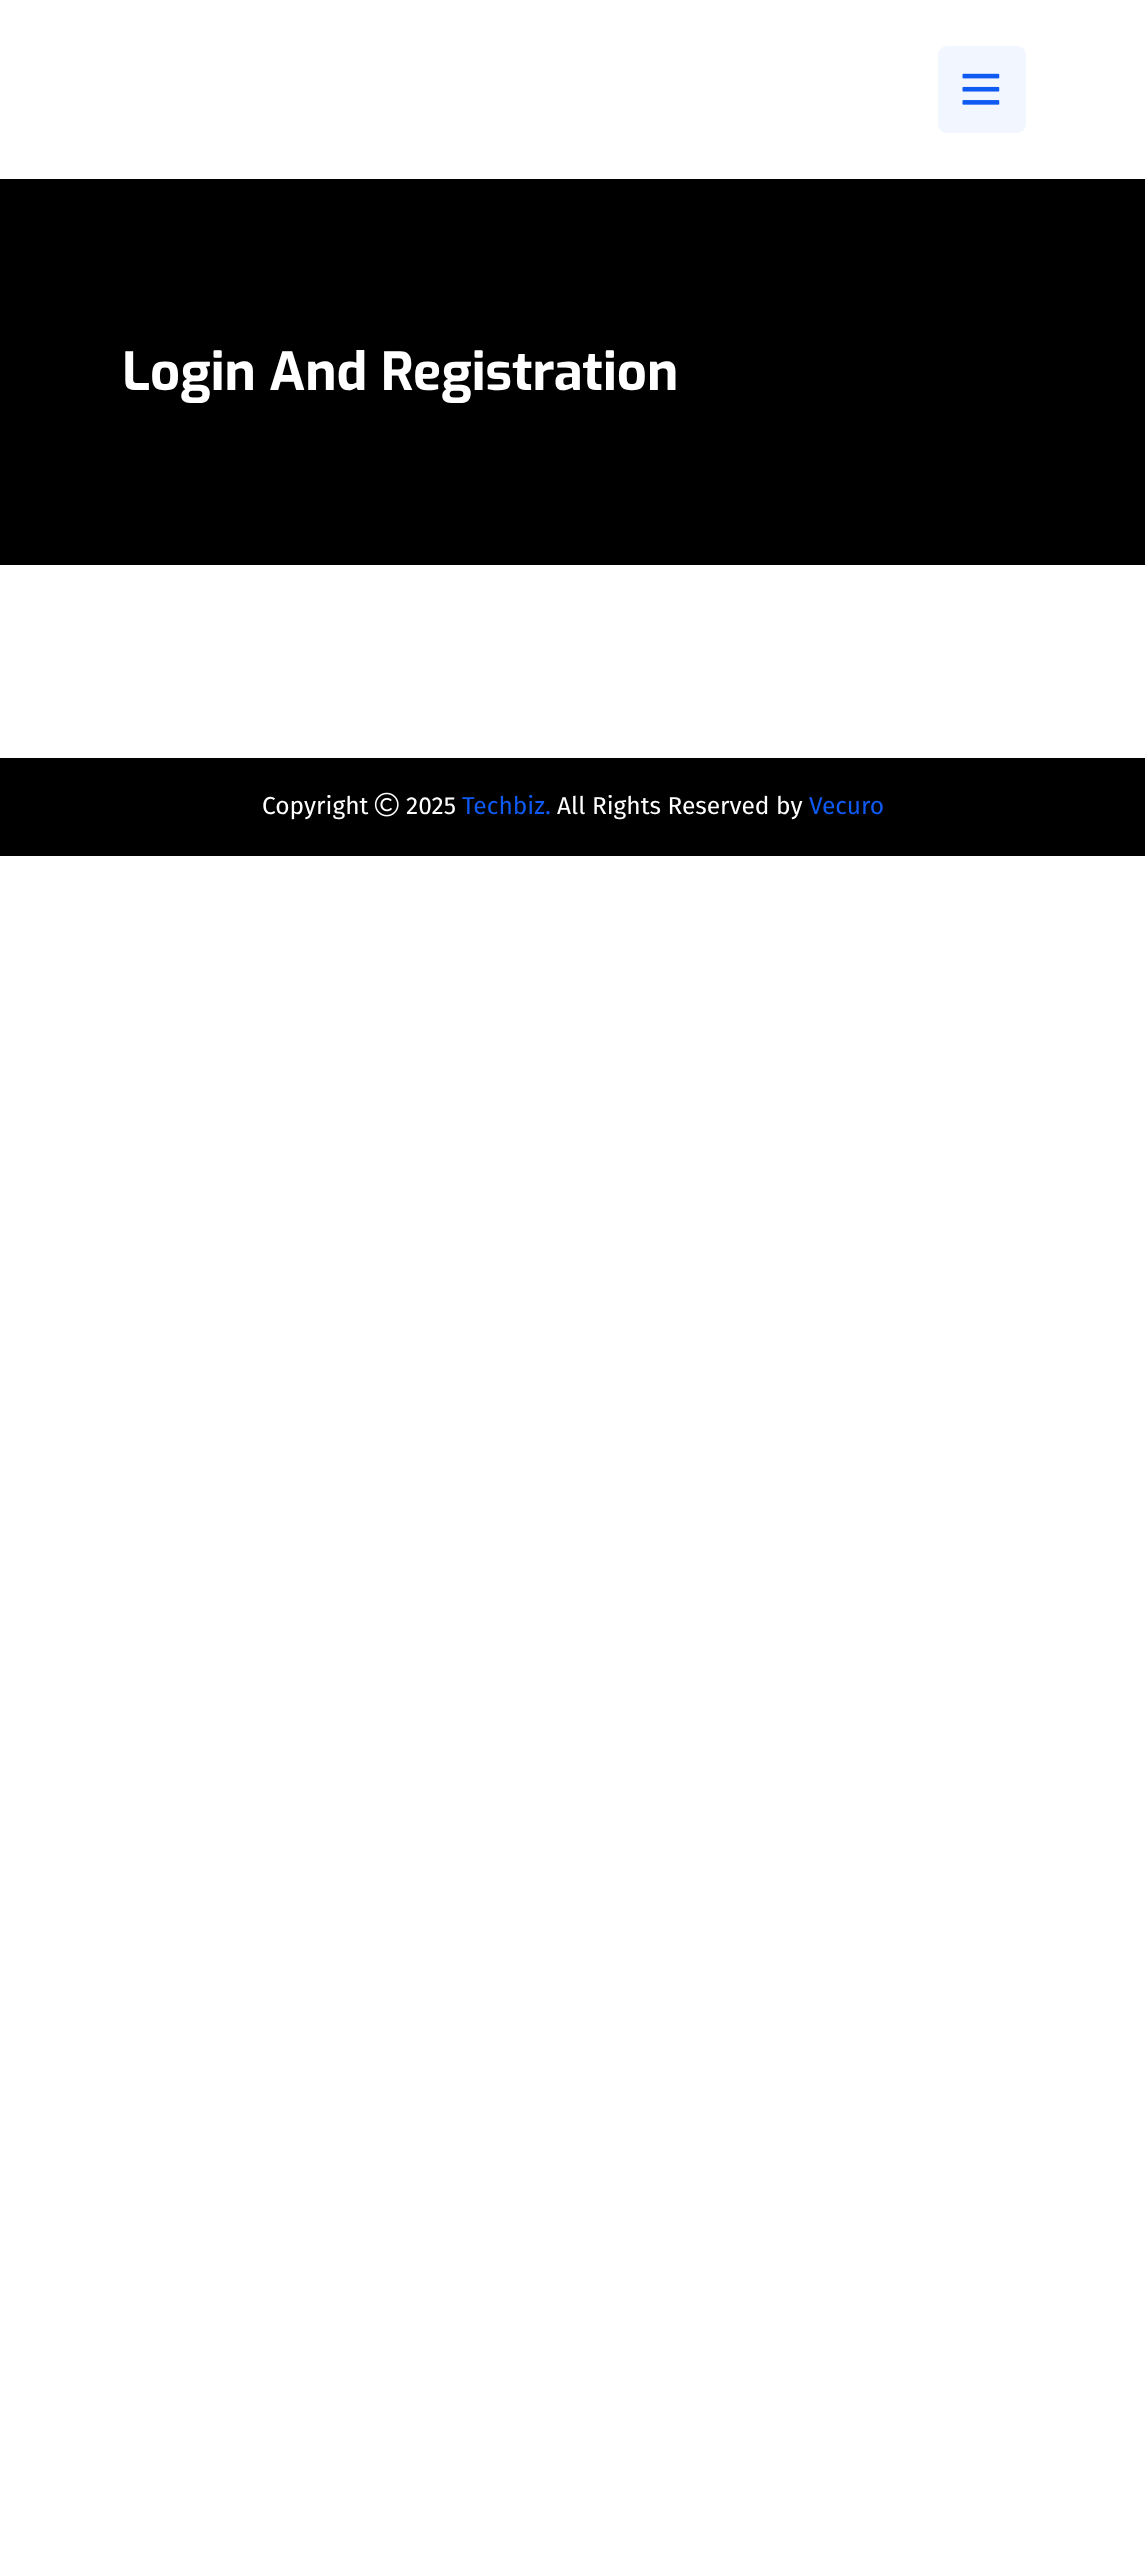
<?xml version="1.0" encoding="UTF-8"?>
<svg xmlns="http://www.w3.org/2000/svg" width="1145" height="2563">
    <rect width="100%" height="100%" fill="#FFFFFF"/>
    <rect x="938" y="46" width="88" height="87" rx="9" fill="#F2F6FF"/>
    <image x="962" y="73" width="38" height="32" href="img_01.png"/>
    <rect x="0" y="179" width="1145" height="386" fill="#000000"/>
    <text x="122" y="390" font-family="Exo" font-size="52.5" font-weight="700" fill="#FFFFFF">Login And Registration</text>
    <rect x="0" y="758" width="1145" height="98" fill="#000000"/>
    <text x="262" y="814" font-family="Fira Sans" font-size="24.5" fill="#FFFFFF">Copyright</text>
    <image x="374" y="792" width="25" height="25" href="img_02.png"/>
    <text x="406" y="814" font-family="Fira Sans" font-size="24.5" fill="#FFFFFF">2025</text>
    <text x="462" y="814" font-family="Fira Sans" font-size="24.5" fill="#0E5AF2">Techbiz.</text>
    <text x="557" y="814" font-family="Fira Sans" font-size="24.5" fill="#FFFFFF">All Rights Reserved by</text>
    <text x="809" y="814" font-family="Fira Sans" font-size="24.5" fill="#0E5AF2">Vecuro</text>
</svg>
